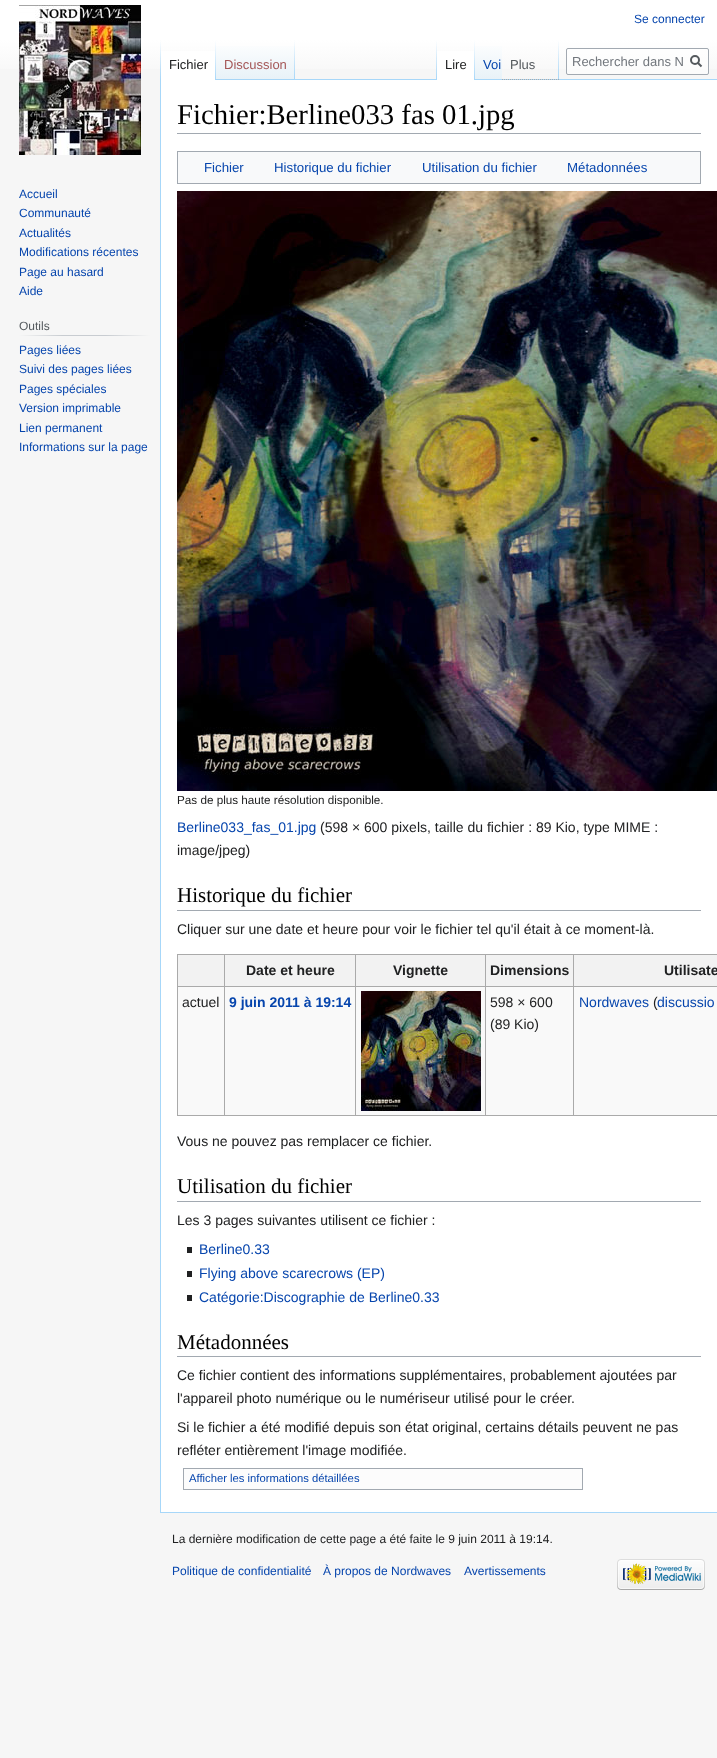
<?xml version="1.0" encoding="UTF-8"?>
<svg xmlns="http://www.w3.org/2000/svg" width="717" height="1758">
    <defs>
        <linearGradient id="g1" gradientUnits="userSpaceOnUse" x1="359" y1="0" x2="359" y2="80"><stop offset="0.5" stop-color="#FFFFFF"/><stop offset="1" stop-color="#F6F6F6"/></linearGradient>
        <linearGradient id="g2" gradientUnits="userSpaceOnUse" x1="161" y1="40" x2="161" y2="80"><stop offset="0" stop-color="#A7D7F9" stop-opacity="0"/><stop offset="1" stop-color="#A7D7F9"/></linearGradient>
        <linearGradient id="g3" gradientUnits="userSpaceOnUse" x1="216" y1="40" x2="216" y2="80"><stop offset="0" stop-color="#FFFFFF"/><stop offset="1" stop-color="#A7D7F9"/></linearGradient>
        <linearGradient id="g4" gradientUnits="userSpaceOnUse" x1="256" y1="80" x2="256" y2="40"><stop offset="0" stop-color="#77C1F6"/><stop offset="0.03" stop-color="#E8F2F8"/><stop offset="1" stop-color="#FFFFFF"/></linearGradient>
        <linearGradient id="g5" gradientUnits="userSpaceOnUse" x1="295" y1="40" x2="295" y2="80"><stop offset="0" stop-color="#A7D7F9" stop-opacity="0"/><stop offset="1" stop-color="#A7D7F9"/></linearGradient>
        <linearGradient id="g6" gradientUnits="userSpaceOnUse" x1="437" y1="40" x2="437" y2="80"><stop offset="0" stop-color="#A7D7F9" stop-opacity="0"/><stop offset="1" stop-color="#A7D7F9"/></linearGradient>
        <linearGradient id="g7" gradientUnits="userSpaceOnUse" x1="475" y1="40" x2="475" y2="80"><stop offset="0" stop-color="#FFFFFF"/><stop offset="1" stop-color="#A7D7F9"/></linearGradient>
        <linearGradient id="g8" gradientUnits="userSpaceOnUse" x1="489" y1="80" x2="489" y2="40"><stop offset="0" stop-color="#77C1F6"/><stop offset="0.03" stop-color="#E8F2F8"/><stop offset="1" stop-color="#FFFFFF"/></linearGradient>
        <linearGradient id="g9" gradientUnits="userSpaceOnUse" x1="559" y1="40" x2="559" y2="79"><stop offset="0" stop-color="#A7D7F9" stop-opacity="0"/><stop offset="1" stop-color="#A7D7F9"/></linearGradient>
        <linearGradient id="g10" gradientUnits="userSpaceOnUse" x1="19" y1="336" x2="150" y2="336"><stop offset="0" stop-color="#F6F6F6"/><stop offset="0.33" stop-color="#C8CCD1"/><stop offset="0.66" stop-color="#C8CCD1"/><stop offset="1" stop-color="#F6F6F6"/></linearGradient>
    </defs>
    <rect width="100%" height="100%" fill="#F6F6F6"/>
    <rect x="0" y="0" width="717" height="69" fill="url(#g1)"/>
    <text x="634" y="23" font-family="Liberation Sans" font-size="12" fill="#0645AD">Se connecter</text>
    <rect x="160" y="1512" width="557" height="1" fill="#A7D7F9"/>
    <rect x="160" y="79" width="1" height="1434" fill="#A7D7F9"/>
    <rect x="160" y="40" width="1" height="40" fill="url(#g2)"/>
    <rect x="161" y="51" width="54" height="29" fill="#FFFFFF"/>
    <rect x="215" y="40" width="1" height="40" fill="url(#g3)"/>
    <text x="169" y="69" font-family="Liberation Sans" font-size="13" fill="#202122">Fichier</text>
    <rect x="216" y="46" width="79" height="34" fill="url(#g4)"/>
    <rect x="294" y="40" width="1" height="40" fill="url(#g5)"/>
    <text x="224" y="69" font-family="Liberation Sans" font-size="13" fill="#A55858">Discussion</text>
    <rect x="295" y="79" width="422" height="1" fill="#A7D7F9"/>
    <rect x="436" y="40" width="1" height="40" fill="url(#g6)"/>
    <rect x="437" y="51" width="37" height="29" fill="#FFFFFF"/>
    <rect x="474" y="40" width="1" height="40" fill="url(#g7)"/>
    <text x="445" y="69" font-family="Liberation Sans" font-size="13" fill="#202122">Lire</text>
    <rect x="475" y="46" width="27" height="33" fill="url(#g8)"/>
    <text x="483" y="69" font-family="Liberation Sans" font-size="13" fill="#0645AD">Voi</text>
    <rect x="558" y="40" width="1" height="39" fill="url(#g9)"/>
    <path d="M 502 79.5 H 559" fill="none" stroke="#AAAAAA" stroke-dasharray="1 1"/>
    <text x="510" y="69" font-family="Liberation Sans" font-size="13" fill="#54595D">Plus</text>
    <rect x="566.5" y="48.5" width="142" height="26" rx="1.5" fill="#FFFFFF" fill-opacity="0.5" stroke="#A2A9B1"/>
    <text x="572" y="66" font-family="Liberation Sans" font-size="13" fill="#72777D">Rechercher dans N</text>
    <path d="M 701.5 66.5 L 697.5 62.5" fill="none" stroke="#54595D" stroke-width="2"/>
    <circle cx="695" cy="60" r="4" fill="none" stroke="#54595D" stroke-width="2"/>
    <image x="19" y="5" width="122" height="150" href="img_01.png"/>
    <text font-family="Liberation Sans" font-size="12" fill="#0645AD">
        <tspan x="19" y="198">Accueil</tspan>
        <tspan x="19" y="217">Communauté</tspan>
        <tspan x="19" y="237">Actualités</tspan>
        <tspan x="19" y="256">Modifications récentes</tspan>
        <tspan x="19" y="276">Page au hasard</tspan>
        <tspan x="19" y="295">Aide</tspan>
    </text>
    <rect x="19" y="335" width="131" height="1" fill="url(#g10)"/>
    <text x="19" y="330" font-family="Liberation Sans" font-size="12" fill="#54595D">Outils</text>
    <text font-family="Liberation Sans" font-size="12" fill="#0645AD">
        <tspan x="19" y="354">Pages liées</tspan>
        <tspan x="19" y="373">Suivi des pages liées</tspan>
        <tspan x="19" y="393">Pages spéciales</tspan>
        <tspan x="19" y="412">Version imprimable</tspan>
        <tspan x="19" y="432">Lien permanent</tspan>
        <tspan x="19" y="451">Informations sur la page</tspan>
    </text>
    <rect x="161" y="80" width="556" height="1432" fill="#FFFFFF"/>
    <rect x="177" y="133" width="524" height="1" fill="#A2A9B1"/>
    <text x="177" y="124" font-family="Liberation Serif" font-size="28.75" fill="#000000">Fichier:Berline033 fas 01.jpg</text>
    <rect x="177.5" y="151.5" width="523" height="32" fill="#F8F9FA" stroke="#A2A9B1"/>
    <text x="204" y="172" font-family="Liberation Sans" font-size="13.25" fill="#0645AD">Fichier</text>
    <text x="274" y="172" font-family="Liberation Sans" font-size="13.25" fill="#0645AD">Historique du fichier</text>
    <text x="422" y="172" font-family="Liberation Sans" font-size="13.25" fill="#0645AD">Utilisation du fichier</text>
    <text x="567" y="172" font-family="Liberation Sans" font-size="13.25" fill="#0645AD">Métadonnées</text>
    <image x="177" y="191" width="540" height="600" href="img_02.png"/>
    <text x="177" y="804" font-family="Liberation Sans" font-size="11.7" fill="#202122">Pas de plus haute résolution disponible.</text>
    <text x="177" y="832" font-family="Liberation Sans" font-size="14" fill="#0645AD">Berline033_fas_01.jpg</text>
    <text x="320" y="832" font-family="Liberation Sans" font-size="14" fill="#202122">(598 × 600 pixels, taille du fichier : 89 Kio, type MIME :</text>
    <text x="177" y="855" font-family="Liberation Sans" font-size="14" fill="#202122">image/jpeg)</text>
    <rect x="177" y="910" width="524" height="1" fill="#A2A9B1"/>
    <text x="177" y="902" font-family="Liberation Serif" font-size="21" fill="#000000">Historique du fichier</text>
    <text x="177" y="934" font-family="Liberation Sans" font-size="14" fill="#202122">Cliquer sur une date et heure pour voir le fichier tel qu'il était à ce moment-là.</text>
    <rect x="178" y="987" width="539" height="128" fill="#F9F9F9"/>
    <rect x="177" y="954" width="540" height="1" fill="#AAAAAA"/>
    <rect x="177" y="1115" width="540" height="1" fill="#AAAAAA"/>
    <rect x="177" y="954" width="1" height="162" fill="#AAAAAA"/>
    <rect x="178" y="955" width="46" height="31" fill="#F2F2F2"/>
    <rect x="225" y="955" width="130" height="31" fill="#F2F2F2"/>
    <rect x="573" y="986" width="144" height="1" fill="#AAAAAA"/>
    <rect x="573" y="986" width="1" height="130" fill="#AAAAAA"/>
    <rect x="485" y="986" width="89" height="1" fill="#AAAAAA"/>
    <rect x="485" y="986" width="1" height="130" fill="#AAAAAA"/>
    <rect x="355" y="986" width="131" height="1" fill="#AAAAAA"/>
    <rect x="355" y="986" width="1" height="130" fill="#AAAAAA"/>
    <rect x="224" y="986" width="132" height="1" fill="#AAAAAA"/>
    <rect x="224" y="986" width="1" height="130" fill="#AAAAAA"/>
    <rect x="177" y="986" width="48" height="1" fill="#AAAAAA"/>
    <rect x="224" y="954" width="1" height="33" fill="#AAAAAA"/>
    <text x="246" y="975" font-family="Liberation Sans" font-size="14" font-weight="700" fill="#202122">Date et heure</text>
    <rect x="356" y="955" width="129" height="31" fill="#F2F2F2"/>
    <rect x="355" y="954" width="1" height="33" fill="#AAAAAA"/>
    <text x="393" y="975" font-family="Liberation Sans" font-size="14" font-weight="700" fill="#202122">Vignette</text>
    <rect x="486" y="955" width="87" height="31" fill="#F2F2F2"/>
    <rect x="485" y="954" width="1" height="33" fill="#AAAAAA"/>
    <text x="490" y="975" font-family="Liberation Sans" font-size="14" font-weight="700" fill="#202122">Dimensions</text>
    <rect x="574" y="955" width="143" height="31" fill="#F2F2F2"/>
    <rect x="573" y="954" width="1" height="33" fill="#AAAAAA"/>
    <text x="664" y="975" font-family="Liberation Sans" font-size="14" font-weight="700" fill="#202122">Utilisate</text>
    <text x="182" y="1007" font-family="Liberation Sans" font-size="14" fill="#202122">actuel</text>
    <text x="229" y="1007" font-family="Liberation Sans" font-size="14" font-weight="700" fill="#0645AD">9 juin 2011 à 19:14</text>
    <image x="361" y="991" width="120" height="120" href="img_03.png"/>
    <text font-family="Liberation Sans" font-size="14" fill="#202122">
        <tspan x="490" y="1007">598 × 600</tspan>
        <tspan x="490" y="1029">(89 Kio)</tspan>
    </text>
    <text x="579" y="1007" font-family="Liberation Sans" font-size="14" fill="#0645AD">Nordwaves</text>
    <text x="653" y="1007" font-family="Liberation Sans" font-size="14" fill="#202122">(</text>
    <text x="657" y="1007" font-family="Liberation Sans" font-size="14" fill="#0645AD">discussio</text>
    <text x="177" y="1146" font-family="Liberation Sans" font-size="14" fill="#202122">Vous ne pouvez pas remplacer ce fichier.</text>
    <rect x="177" y="1201" width="524" height="1" fill="#A2A9B1"/>
    <text x="177" y="1193" font-family="Liberation Serif" font-size="21" fill="#000000">Utilisation du fichier</text>
    <text x="177" y="1225" font-family="Liberation Sans" font-size="14" fill="#202122">Les 3 pages suivantes utilisent ce fichier :</text>
    <rect x="187" y="1247" width="5" height="6" fill="#202122"/>
    <text x="199" y="1254" font-family="Liberation Sans" font-size="14" fill="#0645AD">Berline0.33</text>
    <rect x="187" y="1271" width="5" height="6" fill="#202122"/>
    <text x="199" y="1278" font-family="Liberation Sans" font-size="14" fill="#0645AD">Flying above scarecrows (EP)</text>
    <rect x="187" y="1295" width="5" height="6" fill="#202122"/>
    <text x="199" y="1302" font-family="Liberation Sans" font-size="14" fill="#0645AD">Catégorie:Discographie de Berline0.33</text>
    <rect x="177" y="1356" width="524" height="1" fill="#A2A9B1"/>
    <text x="177" y="1349" font-family="Liberation Serif" font-size="21" fill="#000000">Métadonnées</text>
    <text font-family="Liberation Sans" font-size="14" fill="#202122">
        <tspan x="177" y="1380">Ce fichier contient des informations supplémentaires, probablement ajoutées par</tspan>
        <tspan x="177" y="1403">l'appareil photo numérique ou le numériseur utilisé pour le créer.</tspan>
    </text>
    <text font-family="Liberation Sans" font-size="14" fill="#202122">
        <tspan x="177" y="1432">Si le fichier a été modifié depuis son état original, certains détails peuvent ne pas</tspan>
        <tspan x="177" y="1455">refléter entièrement l'image modifiée.</tspan>
    </text>
    <rect x="184" y="1469" width="398" height="20" fill="#FCFCFC"/>
    <rect x="183" y="1468" width="400" height="1" fill="#A2A9B1"/>
    <rect x="582" y="1468" width="1" height="22" fill="#A2A9B1"/>
    <rect x="183" y="1489" width="400" height="1" fill="#A2A9B1"/>
    <rect x="183" y="1468" width="1" height="22" fill="#A2A9B1"/>
    <text x="189" y="1482" font-family="Liberation Sans" font-size="11.25" fill="#0645AD">Afficher les informations détaillées</text>
    <text x="172" y="1543" font-family="Liberation Sans" font-size="12" fill="#202122">La dernière modification de cette page a été faite le 9 juin 2011 à 19:14.</text>
    <text x="172" y="1575" font-family="Liberation Sans" font-size="12" fill="#0645AD">Politique de confidentialité</text>
    <text x="323" y="1575" font-family="Liberation Sans" font-size="12" fill="#0645AD">À propos de Nordwaves</text>
    <text x="464" y="1575" font-family="Liberation Sans" font-size="12" fill="#0645AD">Avertissements</text>
    <image x="617" y="1559" width="88" height="31" href="img_04.png"/>
</svg>
